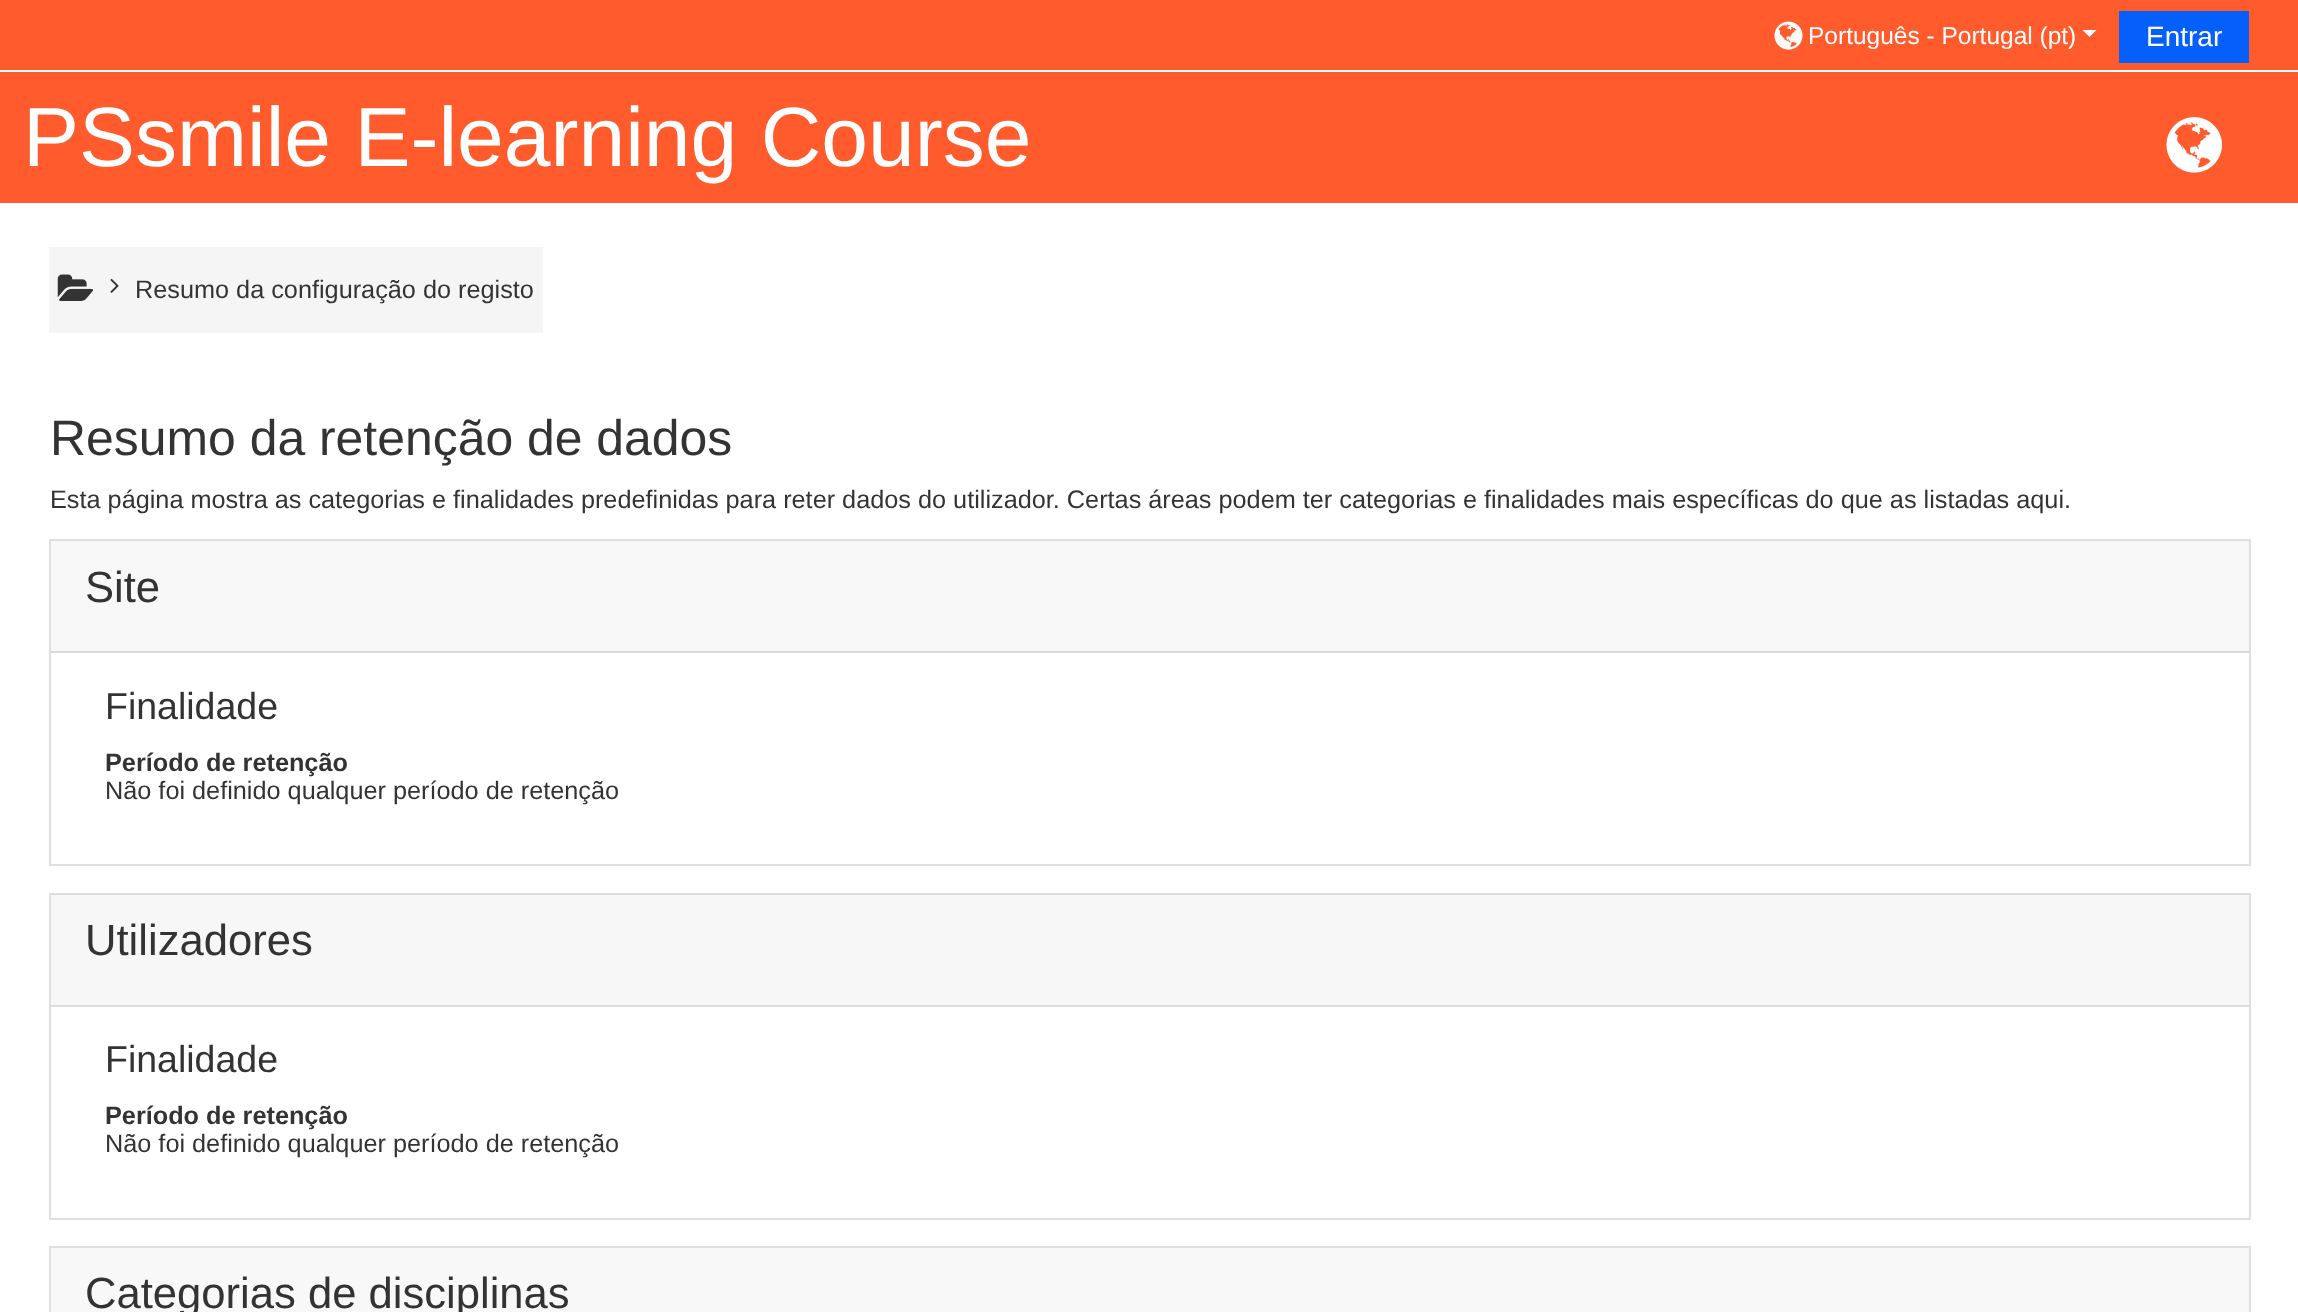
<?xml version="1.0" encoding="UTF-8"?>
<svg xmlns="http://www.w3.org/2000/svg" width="2298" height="1312">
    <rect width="100%" height="100%" fill="#FFFFFF"/>
    <rect x="0" y="0" width="2298" height="203" fill="#FF5B2D"/>
    <rect x="0" y="70" width="2298" height="2" fill="#FFFFFF"/>
    <image x="1774" y="21" width="29" height="29" href="img_01.png"/>
    <text x="1808" y="44" font-family="Liberation Sans" font-size="24.5" fill="#FFFFFF">Português - Portugal (pt)</text>
    <path d="M 2082.5 30 H 2096.5 L 2089.5 37 Z" fill="#FFFFFF"/>
    <rect x="2119" y="11" width="130" height="52" fill="#055FFA"/>
    <text x="2146" y="46" font-family="Liberation Sans" font-size="28" fill="#FFFFFF">Entrar</text>
    <text x="23" y="166" font-family="Liberation Sans" font-size="84" fill="#FFFFFF">PSsmile E-learning Course</text>
    <image x="2166" y="117" width="56" height="56" href="img_02.png"/>
    <rect x="49" y="247" width="494" height="86" fill="#F5F5F5"/>
    <image x="57" y="274" width="36" height="27" href="img_03.png"/>
    <image x="110" y="278" width="9" height="15" href="img_04.png"/>
    <text x="135" y="298" font-family="Liberation Sans" font-size="25.27" fill="#333333">Resumo da configuração do registo</text>
    <text x="50" y="455" font-family="Liberation Sans" font-size="49.9" fill="#333333">Resumo da retenção de dados</text>
    <text x="50" y="508" font-family="Liberation Sans" font-size="25.27" fill="#333333">Esta página mostra as categorias e finalidades predefinidas para reter dados do utilizador. Certas áreas podem ter categorias e finalidades mais específicas do que as listadas aqui.</text>
    <rect x="50" y="540" width="2200" height="325" fill="none" stroke="#DFDFDF" stroke-width="2"/>
    <rect x="51" y="541" width="2198" height="110" fill="#F8F8F8"/>
    <rect x="51" y="651" width="2198" height="2" fill="#D9D9D9"/>
    <text x="85" y="602" font-family="Liberation Sans" font-size="43.6" fill="#333333">Site</text>
    <text x="105" y="719" font-family="Liberation Sans" font-size="37.5" fill="#333333">Finalidade</text>
    <text x="105" y="771" font-family="Liberation Sans" font-size="25.27" font-weight="700" fill="#333333">Período de retenção</text>
    <text x="105" y="799" font-family="Liberation Sans" font-size="25.27" fill="#333333">Não foi definido qualquer período de retenção</text>
    <rect x="50" y="894" width="2200" height="325" fill="none" stroke="#DFDFDF" stroke-width="2"/>
    <rect x="51" y="894" width="2198" height="112" fill="#000000" fill-opacity="0.03"/>
    <rect x="51" y="1005" width="2198" height="2" fill="#000000" fill-opacity="0.12"/>
    <text x="85" y="955" font-family="Liberation Sans" font-size="43.6" fill="#333333">Utilizadores</text>
    <text x="105" y="1072" font-family="Liberation Sans" font-size="37.5" fill="#333333">Finalidade</text>
    <text x="105" y="1124" font-family="Liberation Sans" font-size="25.27" font-weight="700" fill="#333333">Período de retenção</text>
    <text x="105" y="1152" font-family="Liberation Sans" font-size="25.27" fill="#333333">Não foi definido qualquer período de retenção</text>
    <rect x="50" y="1247" width="2200" height="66" fill="none" stroke="#DFDFDF" stroke-width="2"/>
    <rect x="51" y="1248" width="2198" height="64" fill="#F8F8F8"/>
    <text x="85" y="1308" font-family="Liberation Sans" font-size="43.6" fill="#333333">Categorias de disciplinas</text>
</svg>
